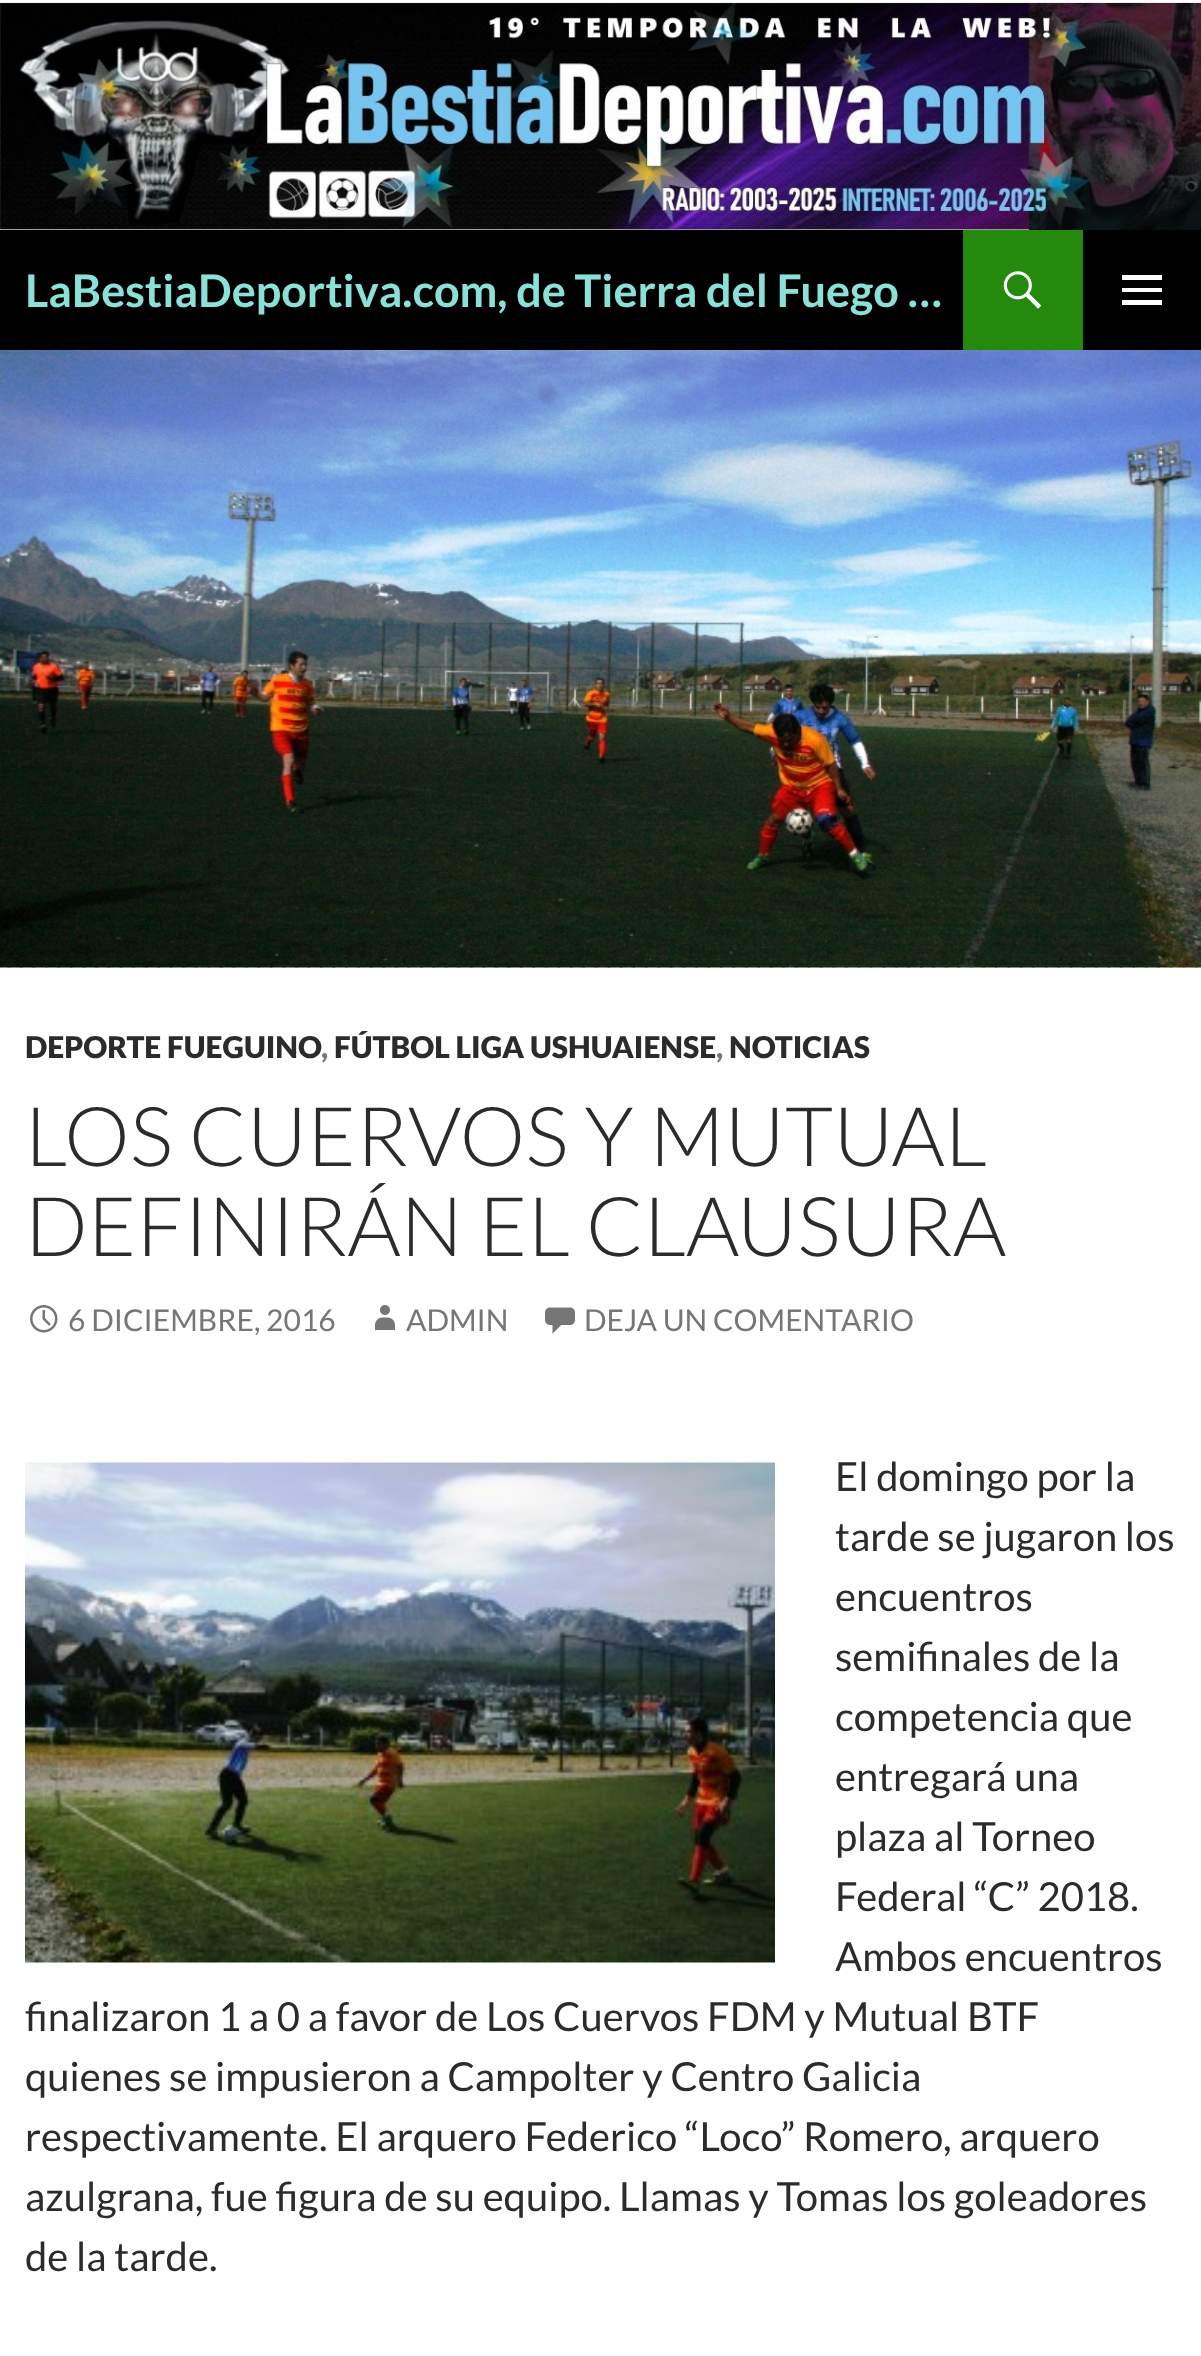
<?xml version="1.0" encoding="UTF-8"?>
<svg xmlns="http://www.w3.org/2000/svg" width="1201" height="2356">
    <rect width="100%" height="100%" fill="#FFFFFF"/>
    <image x="0" y="0" width="1201" height="230" href="img_01.png"/>
    <rect x="0" y="230" width="1201" height="120" fill="#000000"/>
    <text x="25" y="307" font-family="Lato" font-size="45" font-weight="700" fill="#8BE0D7">LaBestiaDeportiva.com, de Tierra del Fuego …</text>
    <rect x="963" y="230" width="120" height="120" fill="#24890D"/>
    <image x="1003" y="271" width="39" height="38" href="img_02.png"/>
    <path d="M 1122 305 V 300 H 1162 V 305 Z M 1122 292 V 288 H 1162 V 292 Z M 1122 280 V 275 H 1162 V 280 Z" fill="#FFFFFF"/>
    <rect x="7" y="967" width="1191" height="1" fill="#B2B2B2"/>
    <image x="0" y="967" width="1201" height="1" href="img_03.png"/>
    <image x="0" y="350" width="1201" height="618" href="img_04.png"/>
    <text x="25" y="1058" font-family="Lato" font-size="30" font-weight="900" fill="#2B2B2B">DEPORTE FUEGUINO</text>
    <text x="321" y="1058" font-family="Lato" font-size="30" font-weight="900" fill="#767676">,</text>
    <text x="334" y="1058" font-family="Lato" font-size="30" font-weight="900" fill="#2B2B2B">FÚTBOL LIGA USHUAIENSE</text>
    <text x="716" y="1058" font-family="Lato" font-size="30" font-weight="900" fill="#767676">,</text>
    <text x="729" y="1058" font-family="Lato" font-size="30" font-weight="900" fill="#2B2B2B">NOTICIAS</text>
    <text font-family="Lato" font-size="82.5" font-weight="300" fill="#2B2B2B">
        <tspan x="25" y="1166">LOS CUERVOS Y MUTUAL</tspan>
        <tspan x="25" y="1256">DEFINIRÁN EL CLAUSURA</tspan>
    </text>
    <image x="30" y="1305" width="28" height="28" href="img_05.png"/>
    <text x="68" y="1331" font-family="Lato" font-size="30" fill="#767676">6 DICIEMBRE, 2016</text>
    <image x="375" y="1305" width="20" height="25" href="img_06.png"/>
    <text x="406" y="1331" font-family="Lato" font-size="30" fill="#767676">ADMIN</text>
    <image x="545" y="1307" width="30" height="27" href="img_07.png"/>
    <text x="584" y="1331" font-family="Lato" font-size="30" fill="#767676">DEJA UN COMENTARIO</text>
    <image x="25" y="1462" width="750" height="501" href="img_08.png"/>
    <text font-family="Lato" font-size="40" fill="#2B2B2B">
        <tspan x="835" y="1491">El domingo por la</tspan>
        <tspan x="835" y="1551">tarde se jugaron los</tspan>
        <tspan x="835" y="1611">encuentros</tspan>
        <tspan x="835" y="1671">semifinales de la</tspan>
        <tspan x="835" y="1731">competencia que</tspan>
        <tspan x="835" y="1791">entregará una</tspan>
        <tspan x="835" y="1851">plaza al Torneo</tspan>
        <tspan x="835" y="1911">Federal “C” 2018.</tspan>
        <tspan x="835" y="1971">Ambos encuentros</tspan>
    </text>
    <text font-family="Lato" font-size="40" fill="#2B2B2B">
        <tspan x="25" y="2031">finalizaron 1 a 0 a favor de Los Cuervos FDM y Mutual BTF</tspan>
        <tspan x="25" y="2091">quienes se impusieron a Campolter y Centro Galicia</tspan>
        <tspan x="25" y="2151">respectivamente. El arquero Federico “Loco” Romero, arquero</tspan>
        <tspan x="25" y="2211">azulgrana, fue figura de su equipo. Llamas y Tomas los goleadores</tspan>
        <tspan x="25" y="2271">de la tarde.</tspan>
    </text>
</svg>
